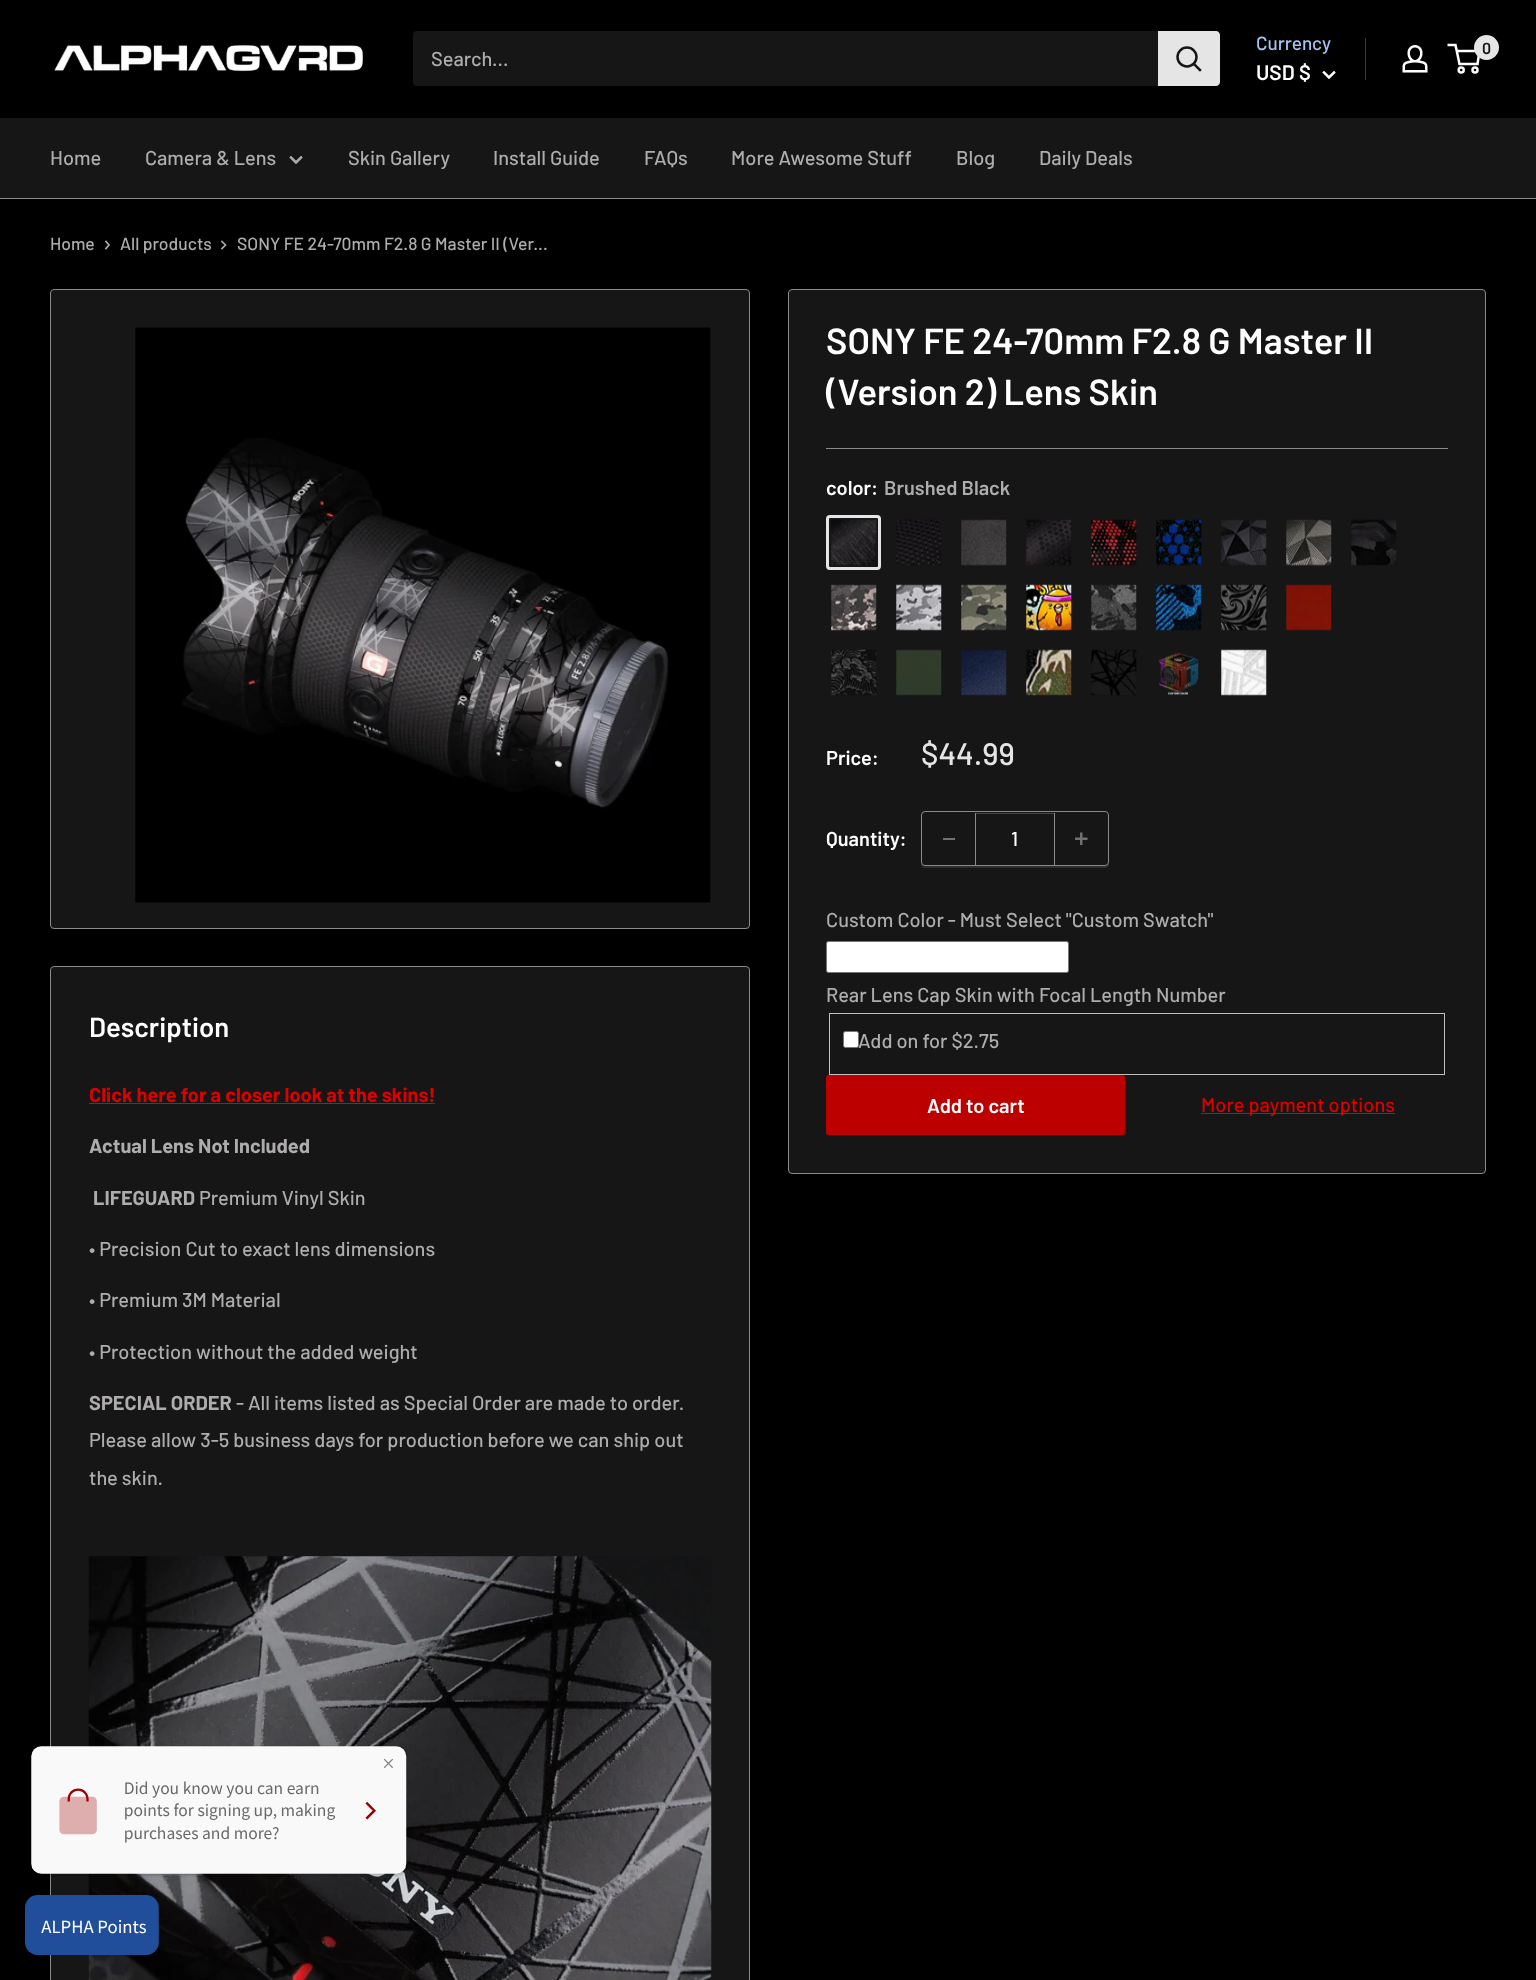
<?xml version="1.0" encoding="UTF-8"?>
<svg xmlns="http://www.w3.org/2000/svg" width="1536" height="1980">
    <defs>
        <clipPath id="clip1"><path d="M 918 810 H 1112 V 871 H 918 Z M 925 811 H 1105 C 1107 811 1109 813 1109 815 V 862 C 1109 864 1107 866 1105 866 H 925 C 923 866 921 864 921 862 V 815 C 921 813 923 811 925 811 Z" clip-rule="evenodd"/></clipPath>
        <filter id="blur1" x="-50%" y="-200%" width="200%" height="500%"><feGaussianBlur stdDeviation="0.5"/></filter>
    </defs>
    <rect width="100%" height="100%" fill="#000000"/>
    <image x="54" y="45" width="309" height="27" href="img_01.png"/>
    <rect x="413" y="31" width="807" height="55" rx="4" fill="#161616"/>
    <text x="431" y="66" font-family="Barlow" font-size="20" font-weight="500" fill="#AFACAC">Search...</text>
    <path d="M 1158 31 H 1216 C 1218 31 1220 33 1220 35 V 82 C 1220 84 1218 86 1216 86 H 1158 Z" fill="#E5E5E5"/>
    <path d="M 1200 70 L 1194 64" fill="none" stroke="#161616" stroke-width="2.5" stroke-linecap="square"/>
    <circle cx="1187" cy="57" r="9.5" fill="none" stroke="#161616" stroke-width="2.5"/>
    <text x="1256" y="50" font-family="Barlow" font-size="19" font-weight="500" fill="#A3C3F0">Currency</text>
    <text x="1256" y="80" font-family="Barlow" font-size="21" font-weight="600" fill="#FFFFFF">USD $</text>
    <path d="M 1334 72.5 L 1329 77.5 L 1324 72.5" fill="none" stroke="#FFFFFF" stroke-width="2.5" stroke-linecap="square"/>
    <rect x="1365" y="38" width="1" height="42" fill="#313B48"/>
    <image x="1402" y="45" width="26" height="28" href="img_02.png"/>
    <circle cx="1461.2" cy="70" r="2.5" fill="none" stroke="#FFFFFF" stroke-width="2.5"/>
    <circle cx="1475" cy="70" r="2.5" fill="none" stroke="#FFFFFF" stroke-width="2.5"/>
    <path d="M 1456.5 51 H 1479.5 L 1477.5 64 H 1459.5 L 1455.5 45 H 1447.5" fill="none" stroke="#FFFFFF" stroke-width="2.5"/>
    <circle cx="1486.5" cy="47.5" r="12.5" fill="#E5E5E5"/>
    <text x="1482" y="54" font-family="Barlow" font-size="16" font-weight="600" fill="#161616">0</text>
    <rect x="0" y="118" width="1536" height="80" fill="#161616"/>
    <rect x="0" y="198" width="1536" height="1" fill="#8B8B8B"/>
    <text x="50" y="165" font-family="Barlow" font-size="20" font-weight="500" fill="#AFACAC">Home</text>
    <text x="145" y="165" font-family="Barlow" font-size="20" font-weight="500" fill="#AFACAC">Camera &amp; Lens</text>
    <path d="M 301 157.5 L 296 162.5 L 291 157.5" fill="none" stroke="#AFACAC" stroke-width="2.5" stroke-linecap="square"/>
    <text x="348" y="165" font-family="Barlow" font-size="20" font-weight="500" fill="#AFACAC">Skin Gallery</text>
    <text x="493" y="165" font-family="Barlow" font-size="20" font-weight="500" fill="#AFACAC">Install Guide</text>
    <text x="644" y="165" font-family="Barlow" font-size="20" font-weight="500" fill="#AFACAC">FAQs</text>
    <text x="731" y="165" font-family="Barlow" font-size="20" font-weight="500" fill="#AFACAC">More Awesome Stuff</text>
    <text x="956" y="165" font-family="Barlow" font-size="20" font-weight="500" fill="#AFACAC">Blog</text>
    <text x="1039" y="165" font-family="Barlow" font-size="20" font-weight="500" fill="#AFACAC">Daily Deals</text>
    <text x="50" y="250" font-family="Barlow" font-size="17.5" font-weight="500" fill="#AFACAC">Home</text>
    <path d="M 106 241.5 L 109 245 L 106 248.5" fill="none" stroke="#AFACAC" stroke-width="1.7" stroke-linecap="square"/>
    <text x="120" y="250" font-family="Barlow" font-size="17.5" font-weight="500" fill="#AFACAC">All products</text>
    <path d="M 222 241.5 L 225.5 245 L 222 248.5" fill="none" stroke="#AFACAC" stroke-width="1.7" stroke-linecap="square"/>
    <text x="237" y="250" font-family="Barlow" font-size="17.5" font-weight="500" fill="#AFACAC">SONY FE 24-70mm F2.8 G Master II (Ver...</text>
    <rect x="50.5" y="289.5" width="699" height="639" rx="3.5" fill="#161616" stroke="#8B8B8B"/>
    <image x="135" y="327" width="576" height="576" href="img_03.png"/>
    <rect x="788.5" y="289.5" width="697" height="884" rx="3.5" fill="#161616" stroke="#8B8B8B"/>
    <text font-family="Barlow" font-size="36.25" font-weight="600" fill="#FFFFFF">
        <tspan x="826" y="354">SONY FE 24-70mm F2.8 G Master II</tspan>
        <tspan x="826" y="405">(Version 2) Lens Skin</tspan>
    </text>
    <rect x="826" y="448" width="622" height="1" fill="#8B8B8B"/>
    <text x="826" y="495" font-family="Barlow" font-size="20" font-weight="600" fill="#FFFFFF">color:</text>
    <text x="884" y="495" font-family="Barlow" font-size="20" font-weight="600" fill="#AFACAC">Brushed Black</text>
    <image x="831" y="519" width="46" height="47" href="img_04.png"/>
    <rect x="827.5" y="516.5" width="52" height="52" rx="2.5" fill="none" stroke="#E5E5E5" stroke-width="3"/>
    <image x="896" y="519" width="46" height="47" href="img_05.png"/>
    <image x="961" y="519" width="46" height="47" href="img_06.png"/>
    <image x="1026" y="519" width="46" height="47" href="img_07.png"/>
    <image x="1091" y="519" width="46" height="47" href="img_08.png"/>
    <image x="1156" y="519" width="46" height="47" href="img_09.png"/>
    <image x="1221" y="519" width="46" height="47" href="img_10.png"/>
    <image x="1286" y="519" width="46" height="47" href="img_11.png"/>
    <image x="1351" y="519" width="46" height="47" href="img_12.png"/>
    <image x="831" y="584" width="46" height="47" href="img_13.png"/>
    <image x="896" y="584" width="46" height="47" href="img_14.png"/>
    <image x="961" y="584" width="46" height="47" href="img_15.png"/>
    <image x="1026" y="584" width="46" height="47" href="img_16.png"/>
    <image x="1091" y="584" width="46" height="47" href="img_17.png"/>
    <image x="1156" y="584" width="46" height="47" href="img_18.png"/>
    <image x="1221" y="584" width="46" height="47" href="img_19.png"/>
    <image x="1286" y="584" width="46" height="47" href="img_20.png"/>
    <image x="831" y="649" width="46" height="47" href="img_21.png"/>
    <image x="896" y="649" width="46" height="47" href="img_22.png"/>
    <image x="961" y="649" width="46" height="47" href="img_23.png"/>
    <image x="1026" y="649" width="46" height="47" href="img_24.png"/>
    <image x="1091" y="649" width="46" height="47" href="img_25.png"/>
    <image x="1158" y="652" width="41" height="43" href="img_26.png"/>
    <image x="1221" y="649" width="46" height="47" href="img_27.png"/>
    <text x="826" y="765" font-family="Barlow" font-size="20" font-weight="600" fill="#FFFFFF">Price:</text>
    <text x="921" y="765" font-family="Barlow" font-size="31" font-weight="500" fill="#E5E5E5">$44.99</text>
    <text x="826" y="846" font-family="Barlow" font-size="20" font-weight="600" fill="#FFFFFF">Quantity:</text>
    <g clip-path="url(#clip1)">
        <rect x="921" y="813" width="188" height="55" rx="4" fill="#8B8B8B" fill-opacity="0.2" filter="url(#blur1)"/>
    </g>
    <rect x="921.5" y="811.5" width="187" height="54" rx="3.5" fill="none" stroke="#8B8B8B"/>
    <rect x="943" y="838" width="12" height="2" fill="#727070"/>
    <rect x="976" y="813" width="78" height="1" fill="#454545"/>
    <rect x="1054" y="813" width="1" height="52" fill="#8B8B8B"/>
    <rect x="975" y="813" width="1" height="52" fill="#8B8B8B"/>
    <text x="1011" y="846" font-family="Barlow" font-size="20" font-weight="500" fill="#FFFFFF">1</text>
    <image x="1075" y="832" width="13" height="13" href="img_28.png"/>
    <text x="826" y="927" font-family="Barlow" font-size="20" font-weight="500" fill="#AFACAC">Custom Color - Must Select "Custom Swatch"</text>
    <rect x="826.5" y="941.5" width="242" height="31" rx="2" fill="#FFFFFF" stroke="#767676"/>
    <text x="826" y="1002" font-family="Barlow" font-size="20" font-weight="500" fill="#AFACAC">Rear Lens Cap Skin with Focal Length Number</text>
    <rect x="829.5" y="1013.5" width="615" height="61" fill="none" stroke="#C0C0C0"/>
    <rect x="843.5" y="1031.5" width="15" height="16" rx="2" fill="#FFFFFF" stroke="#767676"/>
    <text x="858" y="1048" font-family="Barlow" font-size="20" font-weight="500" fill="#AFACAC">Add on for $2.75</text>
    <rect x="826" y="1075" width="299" height="60" rx="2.5" fill="#BC0000"/>
    <text x="927" y="1113" font-family="Barlow" font-size="20" font-weight="600" fill="#FFFFFF">Add to cart</text>
    <rect x="1201" y="1113" width="194" height="1" fill="#DC0000"/>
    <text x="1201" y="1112" font-family="Barlow" font-size="20" font-weight="500" fill="#DC0000">More payment options</text>
    <rect x="50.5" y="966.5" width="699" height="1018" rx="3.5" fill="#161616" stroke="#8B8B8B"/>
    <text x="89" y="1037" font-family="Barlow" font-size="27.5" font-weight="600" fill="#FFFFFF">Description</text>
    <text x="89" y="1102" font-family="Barlow" font-size="20" font-weight="700" fill="#DC0000">Click here for a closer look at the skins!</text>
    <rect x="89" y="1103" width="346" height="1" fill="#DC0000"/>
    <text x="89" y="1153" font-family="Barlow" font-size="20" font-weight="700" fill="#AFACAC">Actual Lens Not Included</text>
    <text x="93" y="1205" font-family="Barlow" font-size="20" font-weight="700" fill="#AFACAC">LIFEGUARD</text>
    <text x="199" y="1205" font-family="Barlow" font-size="20" font-weight="500" fill="#AFACAC">Premium Vinyl Skin</text>
    <text x="89" y="1256" font-family="Barlow" font-size="20" font-weight="500" fill="#AFACAC">• Precision Cut to exact lens dimensions</text>
    <text x="89" y="1307" font-family="Barlow" font-size="20" font-weight="500" fill="#AFACAC">• Premium 3M Material</text>
    <text x="89" y="1359" font-family="Barlow" font-size="20" font-weight="500" fill="#AFACAC">• Protection without the added weight</text>
    <text x="89" y="1410" font-family="Barlow" font-size="20" font-weight="700" fill="#AFACAC">SPECIAL ORDER</text>
    <text x="236" y="1410" font-family="Barlow" font-size="20" font-weight="500" fill="#AFACAC">- All items listed as Special Order are made to order.</text>
    <text font-family="Barlow" font-size="20" font-weight="500" fill="#AFACAC">
        <tspan x="89" y="1447">Please allow 3-5 business days for production before we can ship out</tspan>
        <tspan x="89" y="1485">the skin.</tspan>
    </text>
    <image x="88" y="1556" width="624" height="424" href="img_29.png"/>
    <image x="31" y="1745" width="377" height="132" href="img_30.png"/>
    <image x="25" y="1895" width="134" height="60" href="img_31.png"/>
</svg>
